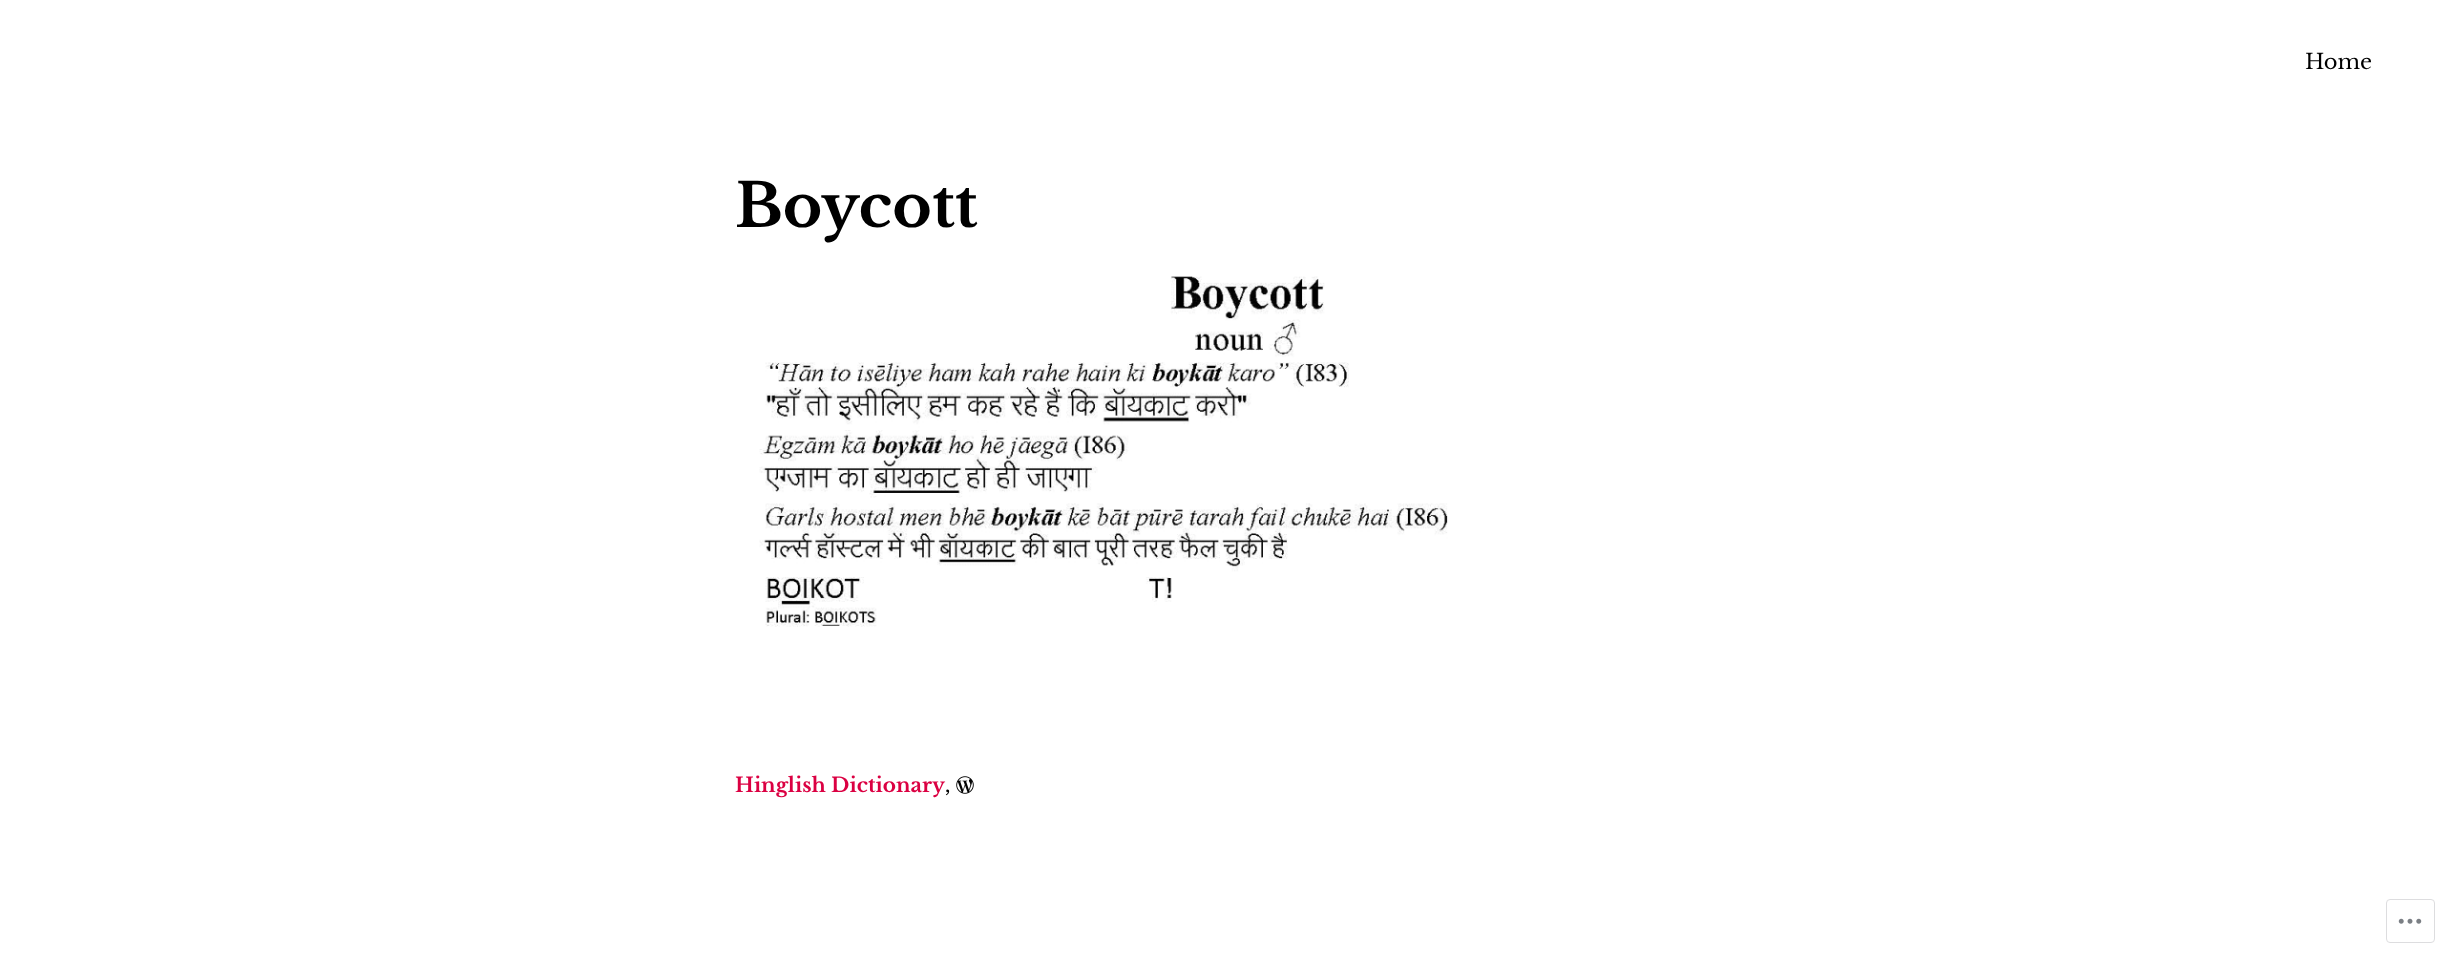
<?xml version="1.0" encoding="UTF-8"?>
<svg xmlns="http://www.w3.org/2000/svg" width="2447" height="954">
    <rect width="100%" height="100%" fill="#FFFFFF"/>
    <text x="2305" y="69" font-family="Libre Baskerville" font-size="21" fill="#000000">Home</text>
    <text x="735" y="227" font-family="Libre Baskerville" font-size="60" font-weight="700" fill="#000000">Boycott</text>
    <image x="759" y="276" width="689" height="351" href="img_01.png"/>
    <text x="735" y="792" font-family="Libre Baskerville" font-size="20" font-weight="700" fill="#DB0042">Hinglish Dictionary</text>
    <text x="945" y="792" font-family="Libre Baskerville" font-size="20" font-weight="500" fill="#000000">,</text>
    <image x="956" y="776" width="18" height="18" href="img_02.png"/>
    <rect x="2386.5" y="899.5" width="48" height="43" rx="3.5" fill="none" stroke="#DDDDDF"/>
    <image x="2398" y="918" width="24" height="6" href="img_03.png"/>
</svg>
